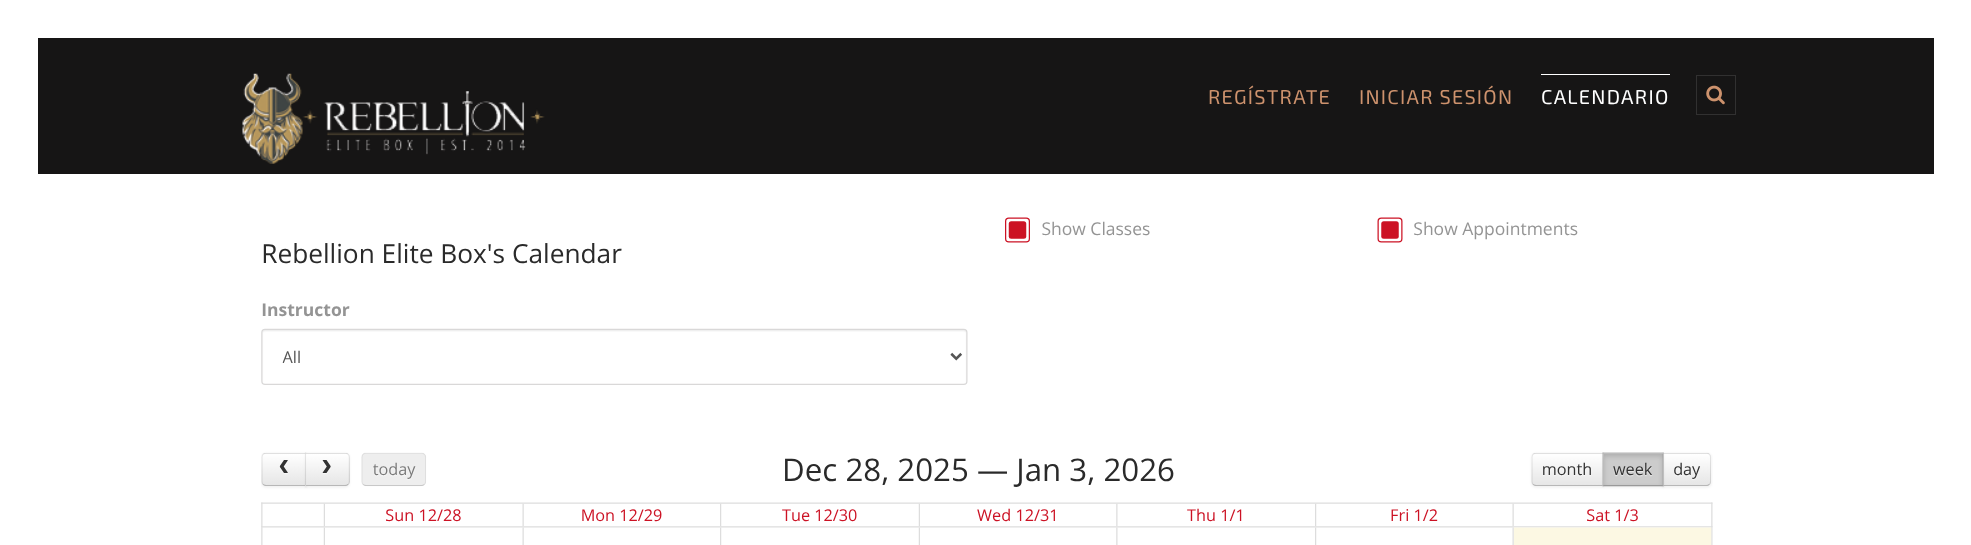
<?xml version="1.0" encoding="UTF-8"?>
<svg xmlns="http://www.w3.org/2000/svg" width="1971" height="545">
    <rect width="100%" height="100%" fill="#FFFFFF"/>
    <rect x="38" y="38" width="1896" height="136" fill="#161515"/>
    <image x="242" y="73" width="303" height="91" href="img_01.png"/>
    <text x="1208" y="104" font-family="'Exo 2'" font-size="20" letter-spacing="1.25" fill="#CD926D">REGÍSTRATE</text>
    <text x="1359" y="104" font-family="'Exo 2'" font-size="20" letter-spacing="1.25" fill="#CD926D">INICIAR SESIÓN</text>
    <rect x="1541" y="74" width="129" height="1" fill="#FFFFFF"/>
    <text x="1541" y="104" font-family="'Exo 2'" font-size="20" letter-spacing="1.25" fill="#FFFFFF">CALENDARIO</text>
    <rect x="1696.5" y="75.5" width="39" height="39" fill="none" stroke="#313030"/>
    <image x="1706" y="85" width="19" height="20" href="img_02.png"/>
    <image x="261" y="217" width="1452" height="328" href="img_03.png"/>
</svg>
